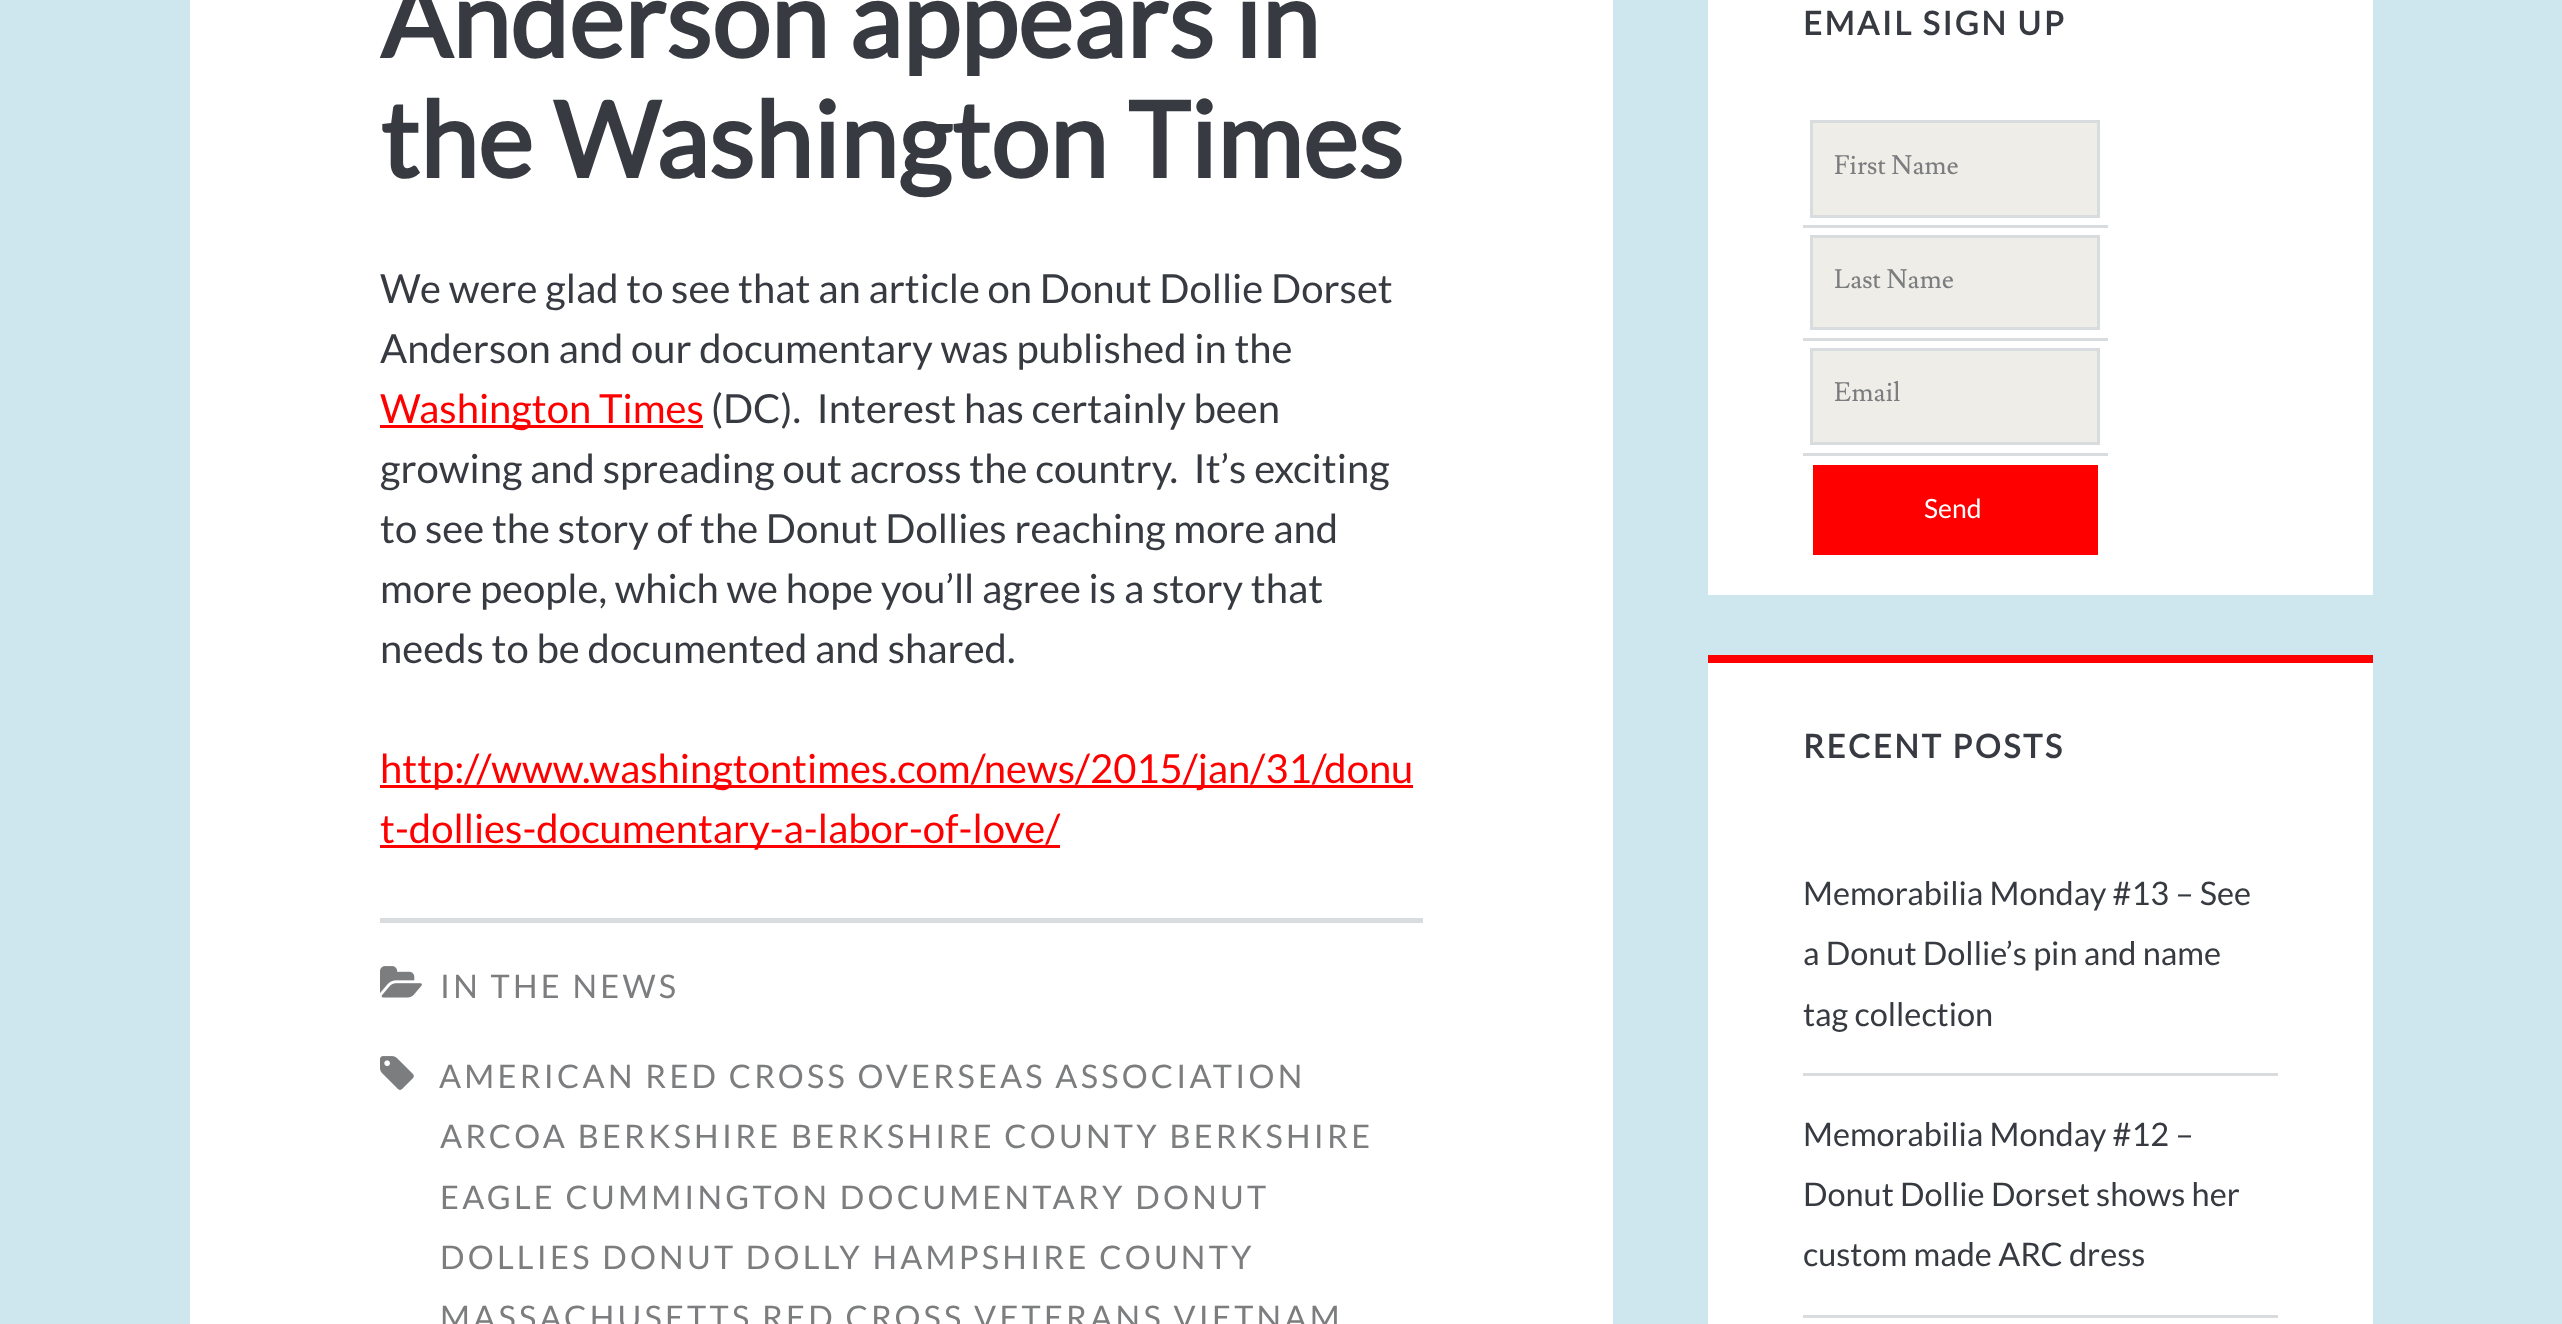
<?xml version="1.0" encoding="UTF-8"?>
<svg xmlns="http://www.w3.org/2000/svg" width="2562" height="1324">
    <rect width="100%" height="100%" fill="#CEE7EF"/>
    <rect x="190" y="0" width="1423" height="1324" fill="#FFFFFF"/>
    <text font-family="Lato" font-size="105" font-weight="700" fill="#373B41">
        <tspan x="380" y="58">Anderson appears in</tspan>
        <tspan x="380" y="178">the Washington Times</tspan>
    </text>
    <rect x="380" y="918" width="1043" height="5" fill="#D9DCDF"/>
    <text font-family="Lato" font-size="40" fill="#373B41">
        <tspan x="380" y="303">We were glad to see that an article on Donut Dollie Dorset</tspan>
        <tspan x="380" y="363">Anderson and our documentary was published in the</tspan>
    </text>
    <rect x="380" y="425" width="323" height="3" fill="#FF0000"/>
    <text x="380" y="423" font-family="Lato" font-size="40" fill="#FF0000">Washington Times</text>
    <text x="711" y="423" font-family="Lato" font-size="40" fill="#373B41" xml:space="preserve">(DC).  Interest has certainly been</text>
    <text font-family="Lato" font-size="40" fill="#373B41" xml:space="preserve"><tspan x="380" y="483">growing and spreading out across the country.  It’s exciting</tspan><tspan x="380" y="543">to see the story of the Donut Dollies reaching more and</tspan><tspan x="380" y="603">more people, which we hope you’ll agree is a story that</tspan><tspan x="380" y="663">needs to be documented and shared.</tspan></text>
    <rect x="380" y="785" width="1033" height="3" fill="#FF0000"/>
    <text x="380" y="783" font-family="Lato" font-size="40" fill="#FF0000">http://www.washingtontimes.com/news/2015/jan/31/donu</text>
    <rect x="380" y="845" width="680" height="3" fill="#FF0000"/>
    <text x="380" y="843" font-family="Lato" font-size="40" fill="#FF0000">t-dollies-documentary-a-labor-of-love/</text>
    <image x="380" y="966" width="42" height="32" href="img_01.png"/>
    <text x="440" y="998" font-family="Lato" font-size="32.5" letter-spacing="3.25" fill="#7C7D7F">IN THE NEWS</text>
    <image x="380" y="1056" width="34" height="34" href="img_02.png"/>
    <text x="439" y="1088" font-family="Lato" font-size="32.5" letter-spacing="3.25" fill="#7C7D7F">AMERICAN RED CROSS OVERSEAS ASSOCIATION</text>
    <text font-family="Lato" font-size="32.5" letter-spacing="3.25" fill="#7C7D7F">
        <tspan x="440" y="1148">ARCOA BERKSHIRE BERKSHIRE COUNTY BERKSHIRE</tspan>
        <tspan x="440" y="1209">EAGLE CUMMINGTON DOCUMENTARY DONUT</tspan>
        <tspan x="440" y="1269">DOLLIES DONUT DOLLY HAMPSHIRE COUNTY</tspan>
        <tspan x="440" y="1329">MASSACHUSETTS RED CROSS VETERANS VIETNAM</tspan>
    </text>
    <rect x="1708" y="0" width="665" height="595" fill="#FFFFFF"/>
    <text x="1803" y="35" font-family="Lato" font-size="32.5" font-weight="700" letter-spacing="2.6" fill="#373B41">EMAIL SIGN UP</text>
    <rect x="1803" y="225" width="305" height="3" fill="#D9DCDF"/>
    <rect x="1813" y="123" width="284" height="92" fill="#EEEDE8"/>
    <rect x="1811.5" y="121.5" width="287" height="95" fill="none" stroke="#D9DCDF" stroke-width="3"/>
    <text x="1834" y="174" font-family="Lusitana" font-size="26.5" fill="#7C7D7F">First Name</text>
    <rect x="1803" y="338" width="305" height="3" fill="#D9DCDF"/>
    <rect x="1813" y="238" width="284" height="89" fill="#EEEDE8"/>
    <rect x="1811.5" y="236.5" width="287" height="92" fill="none" stroke="#D9DCDF" stroke-width="3"/>
    <text x="1834" y="288" font-family="Lusitana" font-size="26.5" fill="#7C7D7F">Last Name</text>
    <rect x="1803" y="453" width="305" height="3" fill="#D9DCDF"/>
    <rect x="1813" y="351" width="284" height="91" fill="#EEEDE8"/>
    <rect x="1811.5" y="349.5" width="287" height="94" fill="none" stroke="#D9DCDF" stroke-width="3"/>
    <text x="1834" y="401" font-family="Lusitana" font-size="26.5" fill="#7C7D7F">Email</text>
    <rect x="1813" y="465" width="285" height="90" fill="#FF0000"/>
    <text x="1924" y="518" font-family="Lato" font-size="26.5" fill="#FFFFFF">Send</text>
    <rect x="1708" y="663" width="665" height="661" fill="#FFFFFF"/>
    <rect x="1708" y="655" width="665" height="8" fill="#FF0000"/>
    <text x="1803" y="758" font-family="Lato" font-size="32.5" font-weight="700" letter-spacing="2.6" fill="#373B41">RECENT POSTS</text>
    <rect x="1803" y="1073" width="475" height="3" fill="#D9DCDF"/>
    <text font-family="Lato" font-size="32.5" fill="#373B41">
        <tspan x="1803" y="905">Memorabilia Monday #13 – See</tspan>
        <tspan x="1803" y="965">a Donut Dollie’s pin and name</tspan>
        <tspan x="1803" y="1026">tag collection</tspan>
    </text>
    <rect x="1803" y="1315" width="475" height="3" fill="#D9DCDF"/>
    <text font-family="Lato" font-size="32.5" fill="#373B41">
        <tspan x="1803" y="1146">Memorabilia Monday #12 –</tspan>
        <tspan x="1803" y="1206">Donut Dollie Dorset shows her</tspan>
        <tspan x="1803" y="1266">custom made ARC dress</tspan>
    </text>
</svg>
